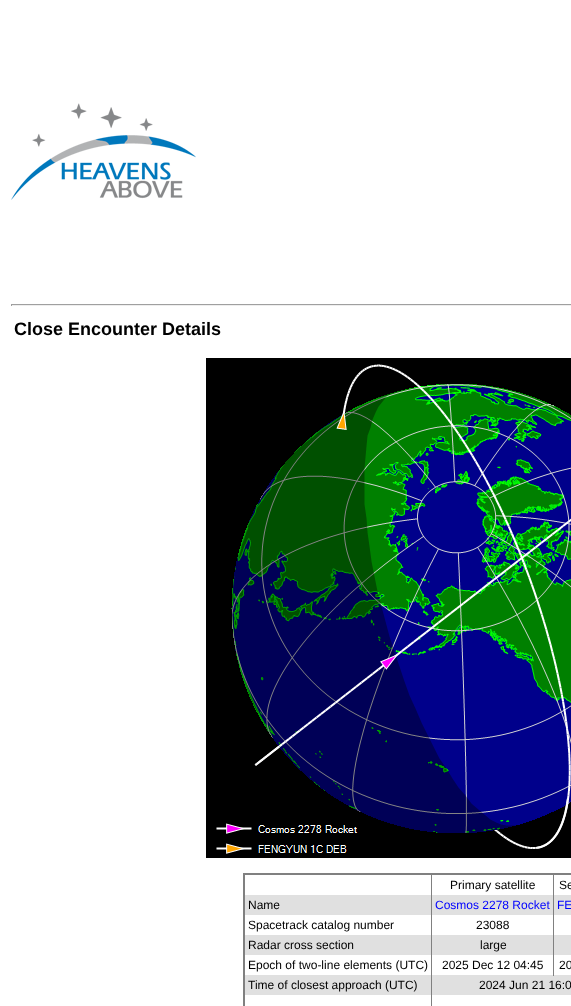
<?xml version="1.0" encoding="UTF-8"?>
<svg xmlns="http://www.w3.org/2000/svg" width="571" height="1006">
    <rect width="100%" height="100%" fill="#FFFFFF"/>
    <image x="11" y="103" width="185" height="97" href="img_01.png"/>
    <rect x="11" y="304" width="560" height="1" fill="#9F9F9F"/>
    <rect x="11" y="305" width="560" height="1" fill="#EEEEEE"/>
    <rect x="11" y="304" width="1" height="2" fill="#9F9F9F"/>
    <text x="14" y="335" font-family="Liberation Sans" font-size="18" font-weight="700" fill="#000000">Close Encounter Details</text>
    <image x="206" y="358" width="365" height="500" href="img_02.png"/>
    <rect x="245" y="895" width="326" height="20" fill="#E0E0E0"/>
    <rect x="245" y="935" width="326" height="20" fill="#E0E0E0"/>
    <rect x="245" y="975" width="326" height="20" fill="#E0E0E0"/>
    <rect x="431" y="874" width="1" height="132" fill="#808080"/>
    <rect x="553" y="874" width="1" height="102" fill="#808080"/>
    <rect x="243" y="873" width="328" height="2" fill="#808080"/>
    <rect x="243" y="873" width="2" height="133" fill="#808080"/>
    <text x="450" y="889" font-family="Liberation Sans" font-size="12" fill="#000000">Primary satellite</text>
    <text x="559" y="889" font-family="Liberation Sans" font-size="12" fill="#000000">Se</text>
    <text x="248" y="909" font-family="Liberation Sans" font-size="12" fill="#000000">Name</text>
    <text x="435" y="909" font-family="Liberation Sans" font-size="12" fill="#0000FF">Cosmos 2278 Rocket</text>
    <text x="557" y="909" font-family="Liberation Sans" font-size="12" fill="#0000FF">FE</text>
    <text x="248" y="929" font-family="Liberation Sans" font-size="12" fill="#000000">Spacetrack catalog number</text>
    <text x="476" y="929" font-family="Liberation Sans" font-size="12" fill="#000000">23088</text>
    <text x="248" y="949" font-family="Liberation Sans" font-size="12" fill="#000000">Radar cross section</text>
    <text x="480" y="949" font-family="Liberation Sans" font-size="12" fill="#000000">large</text>
    <text x="248" y="969" font-family="Liberation Sans" font-size="12" fill="#000000">Epoch of two-line elements (UTC)</text>
    <text x="442" y="969" font-family="Liberation Sans" font-size="12" fill="#000000">2025 Dec 12 04:45</text>
    <text x="559" y="969" font-family="Liberation Sans" font-size="12" fill="#000000">20</text>
    <text x="248" y="989" font-family="Liberation Sans" font-size="12" fill="#000000">Time of closest approach (UTC)</text>
    <text x="479" y="989" font-family="Liberation Sans" font-size="12" fill="#000000">2024 Jun 21 16:0</text>
</svg>
